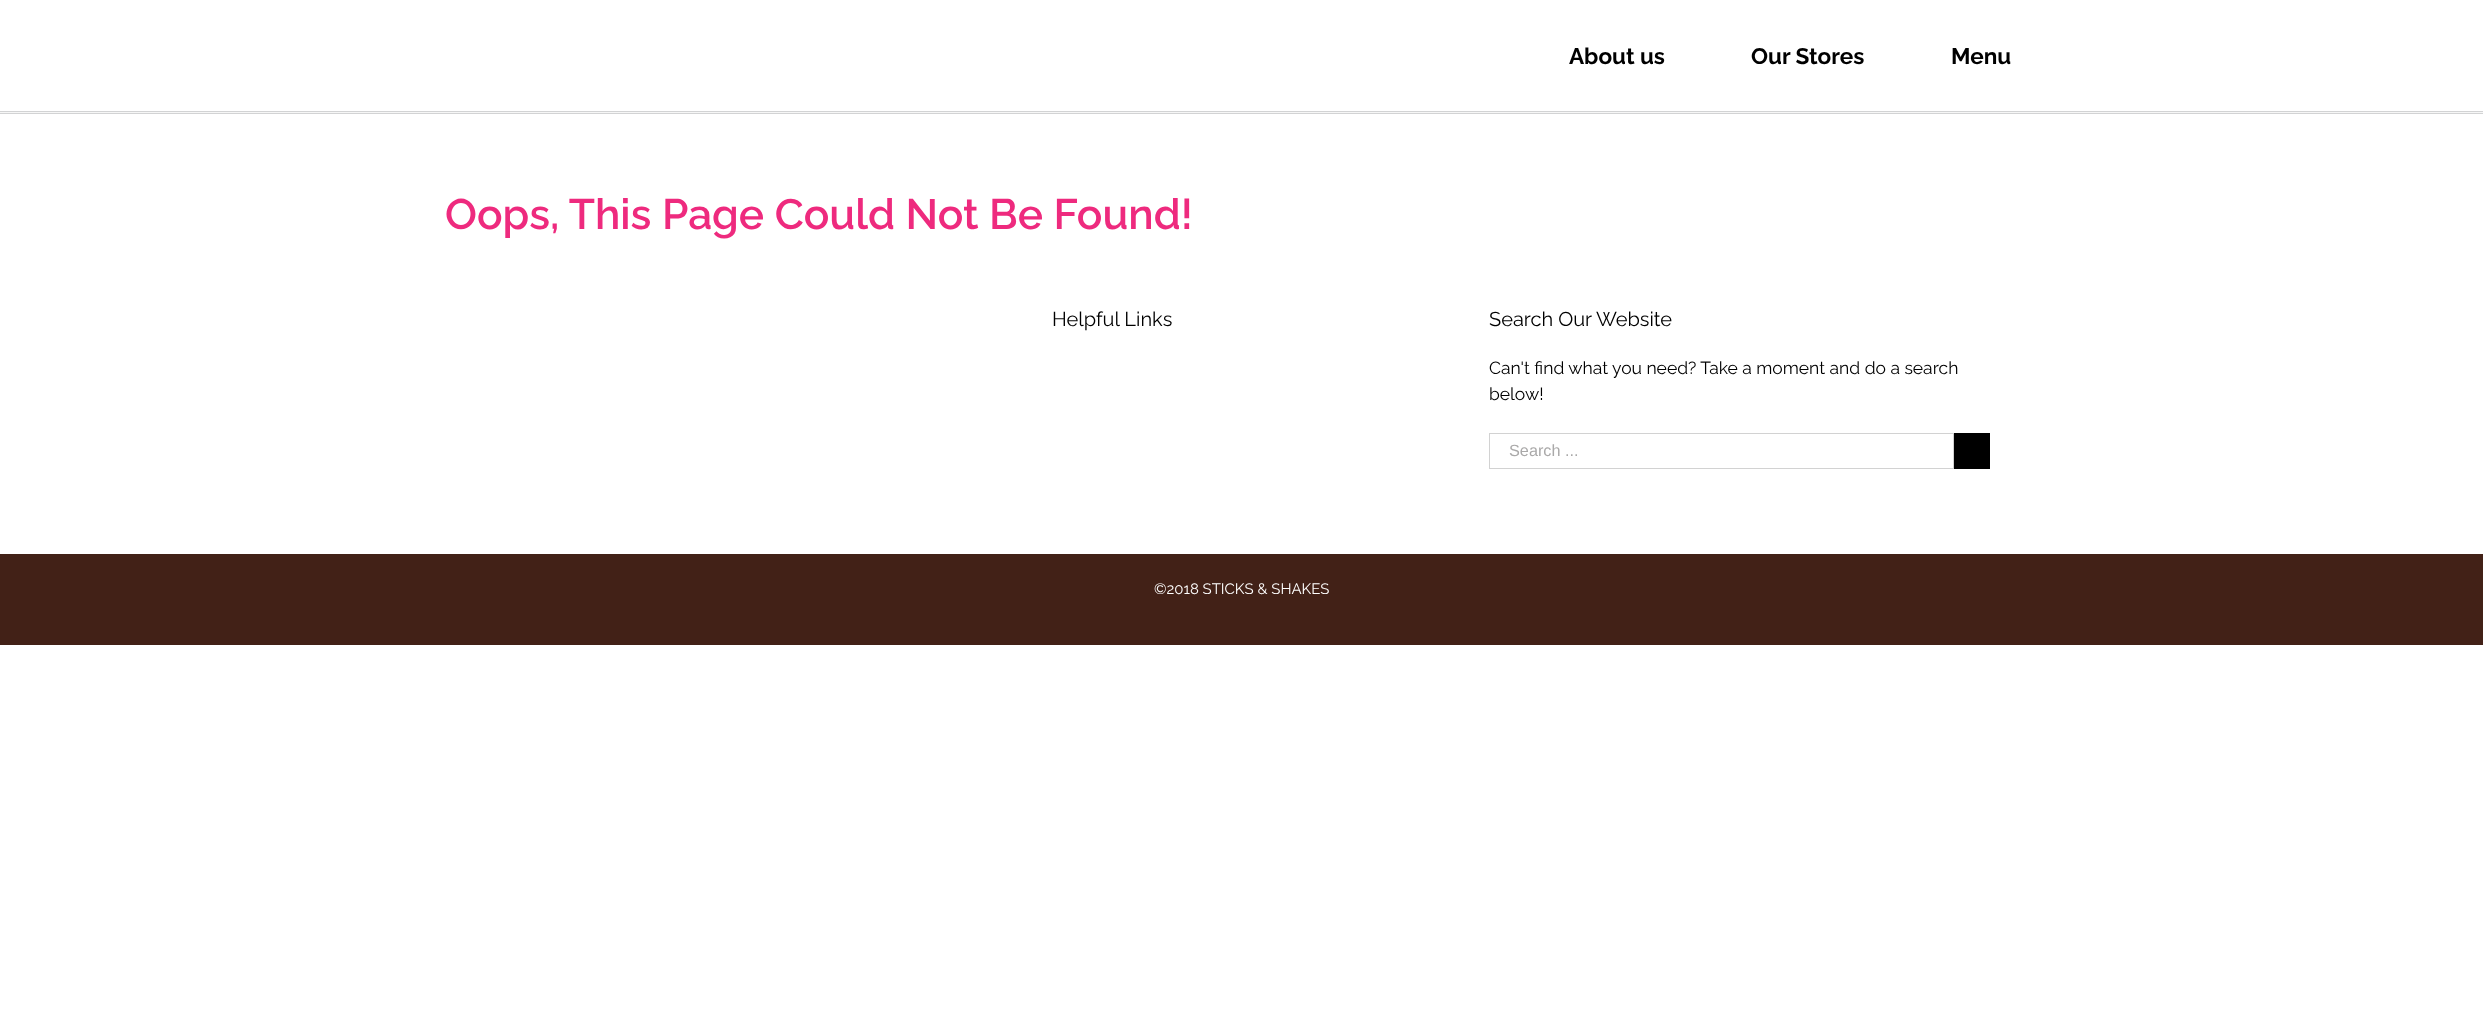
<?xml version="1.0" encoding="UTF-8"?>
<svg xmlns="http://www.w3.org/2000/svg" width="2483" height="1018">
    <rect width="100%" height="100%" fill="#FFFFFF"/>
    <text x="1569" y="64" font-family="'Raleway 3'" font-size="22.5" font-weight="100" fill="#000000">About us</text>
    <text x="1751" y="64" font-family="'Raleway 3'" font-size="22.5" font-weight="100" fill="#000000">Our Stores</text>
    <text x="1951" y="64" font-family="'Raleway 3'" font-size="22.5" font-weight="100" fill="#000000">Menu</text>
    <rect x="0" y="112" width="2483" height="1" fill="#F6F6F6"/>
    <rect x="0" y="111" width="2483" height="1" fill="#D2D3D4"/>
    <rect x="0" y="113" width="2483" height="1" fill="#D2D3D4"/>
    <text x="445" y="229" font-family="Raleway" font-size="42.5" font-weight="100" fill="#EE2A7E">Oops, This Page Could Not Be Found!</text>
    <text x="1052" y="326" font-family="'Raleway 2'" font-size="20" font-weight="100" fill="#000000">Helpful Links</text>
    <text x="1489" y="326" font-family="'Raleway 2'" font-size="20" font-weight="100" fill="#000000">Search Our Website</text>
    <text font-family="'Raleway 2'" font-size="17.5" font-weight="100" fill="#000000">
        <tspan x="1489" y="374">Can't find what you need? Take a moment and do a search</tspan>
        <tspan x="1489" y="400">below!</tspan>
    </text>
    <rect x="1489.5" y="433.5" width="464" height="35" fill="none" stroke="#D2D2D2"/>
    <text x="1509" y="456" font-family="Liberation Sans" font-size="16.25" fill="#AAA9A9">Search ...</text>
    <rect x="1954" y="433" width="36" height="36" fill="#000000"/>
    <rect x="0" y="554" width="2483" height="91" fill="#422117"/>
    <text x="1154" y="594" font-family="'Raleway 2'" font-size="15" font-weight="100" fill="#FFFFFF">©2018 STICKS &amp; SHAKES</text>
</svg>
